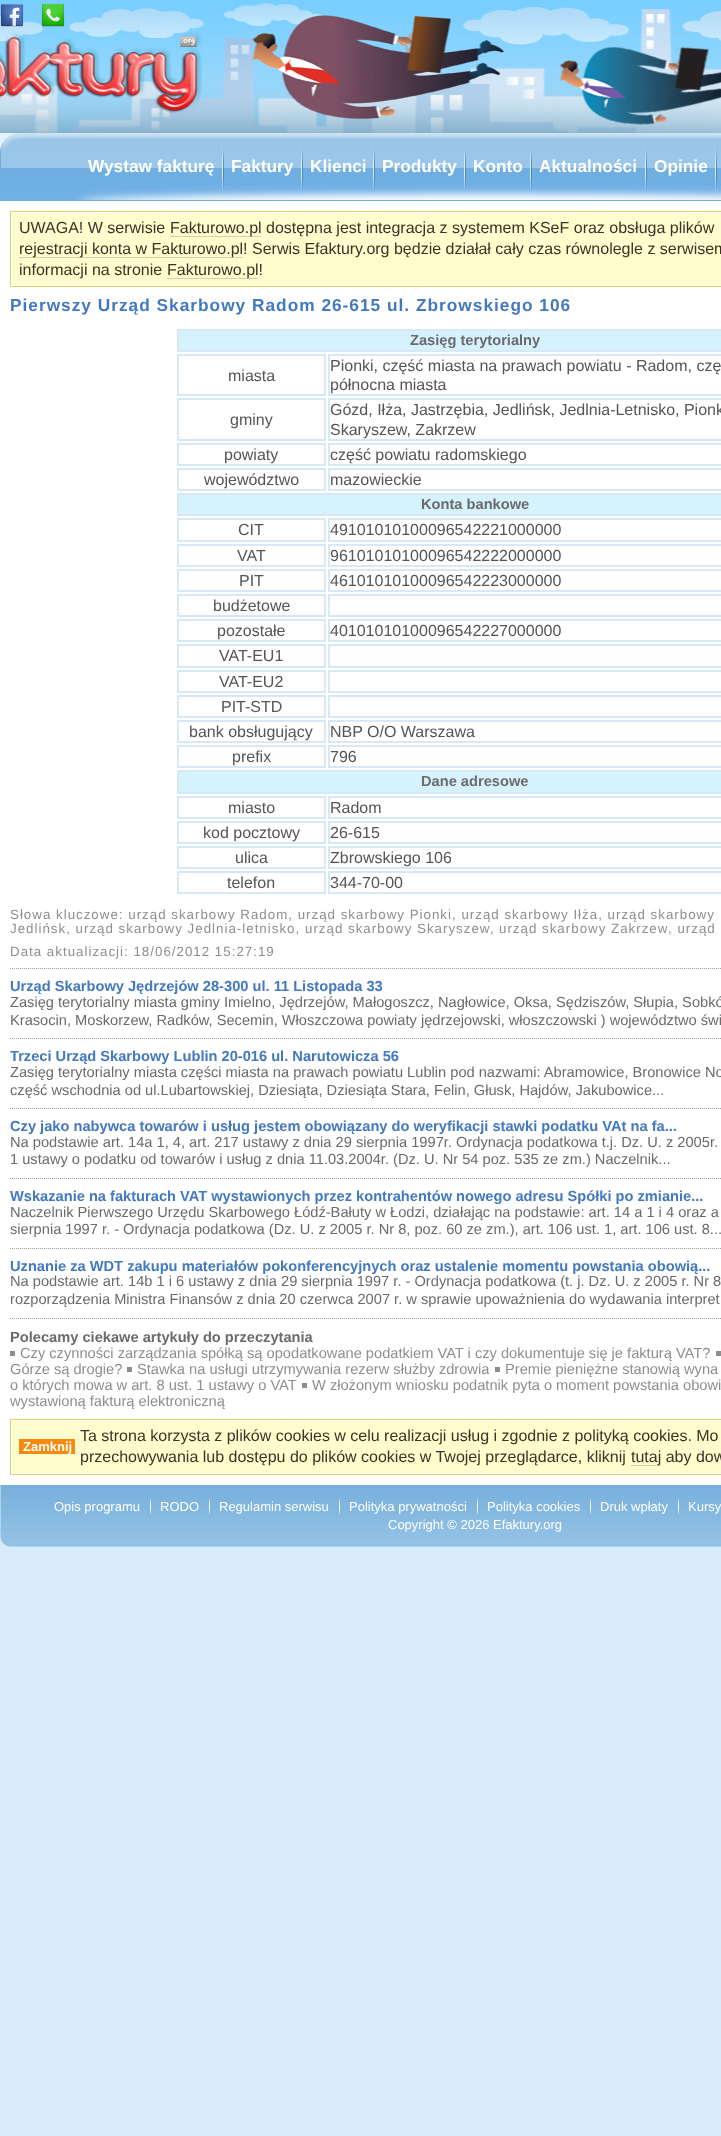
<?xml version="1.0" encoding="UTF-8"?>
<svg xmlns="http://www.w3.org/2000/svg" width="721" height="2136">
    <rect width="100%" height="100%" fill="#DAECFA"/>
    <image x="0" y="0" width="721" height="3" href="img_01.png"/>
    <image x="0" y="3" width="721" height="130" href="img_02.png"/>
    <image x="0" y="3" width="24" height="24" href="img_03.png"/>
    <image x="41" y="3" width="24" height="24" href="img_04.png"/>
    <image x="0" y="133" width="721" height="68" href="img_05.png"/>
    <text x="88" y="172" font-family="Liberation Sans" font-size="17.3" font-weight="700" fill="#FFFFFF">Wystaw fakturę</text>
    <image x="222" y="147" width="2" height="44" href="img_06.png"/>
    <text x="231" y="172" font-family="Liberation Sans" font-size="17.3" font-weight="700" fill="#FFFFFF">Faktury</text>
    <image x="301" y="147" width="2" height="43" href="img_07.png"/>
    <text x="310" y="172" font-family="Liberation Sans" font-size="17.3" font-weight="700" fill="#FFFFFF">Klienci</text>
    <image x="373" y="147" width="2" height="43" href="img_07.png"/>
    <text x="382" y="172" font-family="Liberation Sans" font-size="17.3" font-weight="700" fill="#FFFFFF">Produkty</text>
    <image x="464" y="147" width="2" height="43" href="img_07.png"/>
    <text x="473" y="172" font-family="Liberation Sans" font-size="17.3" font-weight="700" fill="#FFFFFF">Konto</text>
    <image x="530" y="147" width="2" height="43" href="img_07.png"/>
    <text x="539" y="172" font-family="Liberation Sans" font-size="17.3" font-weight="700" fill="#FFFFFF">Aktualności</text>
    <image x="645" y="147" width="2" height="43" href="img_07.png"/>
    <text x="654" y="172" font-family="Liberation Sans" font-size="17.3" font-weight="700" fill="#FFFFFF">Opinie</text>
    <image x="715" y="147" width="2" height="44" href="img_06.png"/>
    <rect x="0" y="201" width="721" height="1284" fill="#FFFFFF"/>
    <rect x="10.5" y="211.5" width="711" height="75" fill="none" stroke="#E2CF69"/>
    <rect x="12" y="213" width="709" height="72" fill="#FFFDCD"/>
    <text x="19" y="233" font-family="Liberation Sans" font-size="16" fill="#3A3326">UWAGA! W serwisie</text>
    <rect x="170" y="236" width="91" height="1" fill="#D4CFA9"/>
    <text x="170" y="233" font-family="Liberation Sans" font-size="16" fill="#3A3326">Fakturowo.pl dostępna jest integracja z systemem KSeF oraz obsługa plików</text>
    <rect x="19" y="257" width="224" height="1" fill="#D4CFA9"/>
    <text font-family="Liberation Sans" font-size="16" fill="#3A3326">
        <tspan x="19" y="254">rejestracji konta w Fakturowo.pl! Serwis Efaktury.org będzie działał cały czas równolegle z serwisem</tspan>
        <tspan x="19" y="275">informacji na stronie</tspan>
    </text>
    <rect x="167" y="278" width="91" height="1" fill="#D4CFA9"/>
    <text x="167" y="275" font-family="Liberation Sans" font-size="16" fill="#3A3326">Fakturowo.pl!</text>
    <text x="10" y="311" font-family="Liberation Sans" font-size="17.3" font-weight="700" letter-spacing="1" fill="#4479BF">Pierwszy Urząd Skarbowy Radom 26-615 ul. Zbrowskiego 106</text>
    <rect x="178" y="330" width="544" height="21" fill="#D7F2FF" stroke="#D8E8F5" stroke-width="2"/>
    <text x="410" y="345" font-family="Liberation Sans" font-size="14.65" font-weight="700" fill="#6B6B6B">Zasięg terytorialny</text>
    <rect x="178" y="355" width="147" height="40" fill="none" stroke="#D8E8F5" stroke-width="2"/>
    <text x="228" y="381" font-family="Liberation Sans" font-size="16" fill="#555555">miasta</text>
    <rect x="329" y="355" width="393" height="40" fill="none" stroke="#D8E8F5" stroke-width="2"/>
    <text font-family="Liberation Sans" font-size="16" fill="#555555">
        <tspan x="330" y="371">Pionki, część miasta na prawach powiatu - Radom, czę</tspan>
        <tspan x="330" y="390">północna miasta</tspan>
    </text>
    <rect x="178" y="399" width="147" height="41" fill="none" stroke="#D8E8F5" stroke-width="2"/>
    <text x="230" y="425" font-family="Liberation Sans" font-size="16" fill="#555555">gminy</text>
    <rect x="329" y="399" width="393" height="41" fill="none" stroke="#D8E8F5" stroke-width="2"/>
    <text font-family="Liberation Sans" font-size="16" fill="#555555">
        <tspan x="330" y="415">Gózd, Iłża, Jastrzębia, Jedlińsk, Jedlnia-Letnisko, Pionk</tspan>
        <tspan x="330" y="435">Skaryszew, Zakrzew</tspan>
    </text>
    <rect x="178" y="444" width="147" height="21" fill="none" stroke="#D8E8F5" stroke-width="2"/>
    <text x="224" y="460" font-family="Liberation Sans" font-size="16" fill="#555555">powiaty</text>
    <rect x="329" y="444" width="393" height="21" fill="none" stroke="#D8E8F5" stroke-width="2"/>
    <text x="330" y="460" font-family="Liberation Sans" font-size="16" fill="#555555">część powiatu radomskiego</text>
    <rect x="178" y="469" width="147" height="21" fill="none" stroke="#D8E8F5" stroke-width="2"/>
    <text x="204" y="485" font-family="Liberation Sans" font-size="16" fill="#555555">województwo</text>
    <rect x="329" y="469" width="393" height="21" fill="none" stroke="#D8E8F5" stroke-width="2"/>
    <text x="330" y="485" font-family="Liberation Sans" font-size="16" fill="#555555">mazowieckie</text>
    <rect x="178" y="494" width="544" height="21" fill="#D7F2FF" stroke="#D8E8F5" stroke-width="2"/>
    <text x="421" y="509" font-family="Liberation Sans" font-size="14.65" font-weight="700" fill="#6B6B6B">Konta bankowe</text>
    <rect x="178" y="519" width="147" height="22" fill="none" stroke="#D8E8F5" stroke-width="2"/>
    <text x="238" y="535" font-family="Liberation Sans" font-size="16" fill="#555555">CIT</text>
    <rect x="329" y="519" width="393" height="22" fill="none" stroke="#D8E8F5" stroke-width="2"/>
    <text x="330" y="535" font-family="Liberation Sans" font-size="16" fill="#555555">49101010100096542221000000</text>
    <rect x="178" y="545" width="147" height="21" fill="none" stroke="#D8E8F5" stroke-width="2"/>
    <text x="237" y="561" font-family="Liberation Sans" font-size="16" fill="#555555">VAT</text>
    <rect x="329" y="545" width="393" height="21" fill="none" stroke="#D8E8F5" stroke-width="2"/>
    <text x="330" y="561" font-family="Liberation Sans" font-size="16" fill="#555555">96101010100096542222000000</text>
    <rect x="178" y="570" width="147" height="21" fill="none" stroke="#D8E8F5" stroke-width="2"/>
    <text x="239" y="586" font-family="Liberation Sans" font-size="16" fill="#555555">PIT</text>
    <rect x="329" y="570" width="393" height="21" fill="none" stroke="#D8E8F5" stroke-width="2"/>
    <text x="330" y="586" font-family="Liberation Sans" font-size="16" fill="#555555">46101010100096542223000000</text>
    <rect x="178" y="595" width="147" height="21" fill="none" stroke="#D8E8F5" stroke-width="2"/>
    <text x="213" y="611" font-family="Liberation Sans" font-size="16" fill="#555555">budżetowe</text>
    <rect x="329" y="595" width="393" height="21" fill="none" stroke="#D8E8F5" stroke-width="2"/>
    <rect x="178" y="620" width="147" height="21" fill="none" stroke="#D8E8F5" stroke-width="2"/>
    <text x="217" y="636" font-family="Liberation Sans" font-size="16" fill="#555555">pozostałe</text>
    <rect x="329" y="620" width="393" height="21" fill="none" stroke="#D8E8F5" stroke-width="2"/>
    <text x="330" y="636" font-family="Liberation Sans" font-size="16" fill="#555555">40101010100096542227000000</text>
    <rect x="178" y="645" width="147" height="22" fill="none" stroke="#D8E8F5" stroke-width="2"/>
    <text x="219" y="661" font-family="Liberation Sans" font-size="16" fill="#555555">VAT-EU1</text>
    <rect x="329" y="645" width="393" height="22" fill="none" stroke="#D8E8F5" stroke-width="2"/>
    <rect x="178" y="671" width="147" height="21" fill="none" stroke="#D8E8F5" stroke-width="2"/>
    <text x="219" y="687" font-family="Liberation Sans" font-size="16" fill="#555555">VAT-EU2</text>
    <rect x="329" y="671" width="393" height="21" fill="none" stroke="#D8E8F5" stroke-width="2"/>
    <rect x="178" y="696" width="147" height="21" fill="none" stroke="#D8E8F5" stroke-width="2"/>
    <text x="221" y="712" font-family="Liberation Sans" font-size="16" fill="#555555">PIT-STD</text>
    <rect x="329" y="696" width="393" height="21" fill="none" stroke="#D8E8F5" stroke-width="2"/>
    <rect x="178" y="721" width="147" height="21" fill="none" stroke="#D8E8F5" stroke-width="2"/>
    <text x="189" y="737" font-family="Liberation Sans" font-size="16" fill="#555555">bank obsługujący</text>
    <rect x="329" y="721" width="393" height="21" fill="none" stroke="#D8E8F5" stroke-width="2"/>
    <text x="330" y="737" font-family="Liberation Sans" font-size="16" fill="#555555">NBP O/O Warszawa</text>
    <rect x="178" y="746" width="147" height="21" fill="none" stroke="#D8E8F5" stroke-width="2"/>
    <text x="232" y="762" font-family="Liberation Sans" font-size="16" fill="#555555">prefix</text>
    <rect x="329" y="746" width="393" height="21" fill="none" stroke="#D8E8F5" stroke-width="2"/>
    <text x="330" y="762" font-family="Liberation Sans" font-size="16" fill="#555555">796</text>
    <rect x="178" y="771" width="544" height="22" fill="#D7F2FF" stroke="#D8E8F5" stroke-width="2"/>
    <text x="421" y="786" font-family="Liberation Sans" font-size="14.65" font-weight="700" fill="#6B6B6B">Dane adresowe</text>
    <rect x="178" y="797" width="147" height="21" fill="none" stroke="#D8E8F5" stroke-width="2"/>
    <text x="228" y="813" font-family="Liberation Sans" font-size="16" fill="#555555">miasto</text>
    <rect x="329" y="797" width="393" height="21" fill="none" stroke="#D8E8F5" stroke-width="2"/>
    <text x="330" y="813" font-family="Liberation Sans" font-size="16" fill="#555555">Radom</text>
    <rect x="178" y="822" width="147" height="21" fill="none" stroke="#D8E8F5" stroke-width="2"/>
    <text x="203" y="838" font-family="Liberation Sans" font-size="16" fill="#555555">kod pocztowy</text>
    <rect x="329" y="822" width="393" height="21" fill="none" stroke="#D8E8F5" stroke-width="2"/>
    <text x="330" y="838" font-family="Liberation Sans" font-size="16" fill="#555555">26-615</text>
    <rect x="178" y="847" width="147" height="21" fill="none" stroke="#D8E8F5" stroke-width="2"/>
    <text x="235" y="863" font-family="Liberation Sans" font-size="16" fill="#555555">ulica</text>
    <rect x="329" y="847" width="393" height="21" fill="none" stroke="#D8E8F5" stroke-width="2"/>
    <text x="330" y="863" font-family="Liberation Sans" font-size="16" fill="#555555">Zbrowskiego 106</text>
    <rect x="178" y="872" width="147" height="21" fill="none" stroke="#D8E8F5" stroke-width="2"/>
    <text x="227" y="888" font-family="Liberation Sans" font-size="16" fill="#555555">telefon</text>
    <rect x="329" y="872" width="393" height="21" fill="none" stroke="#D8E8F5" stroke-width="2"/>
    <text x="330" y="888" font-family="Liberation Sans" font-size="16" fill="#555555">344-70-00</text>
    <text font-family="Liberation Sans" font-size="13.33" letter-spacing="1" fill="#8E8E8E">
        <tspan x="10" y="919">Słowa kluczowe: urząd skarbowy Radom, urząd skarbowy Pionki, urząd skarbowy Iłża, urząd skarbowy</tspan>
        <tspan x="10" y="933">Jedlińsk, urząd skarbowy Jedlnia-letnisko,</tspan>
    </text>
    <text x="305" y="933" font-family="Liberation Sans" font-size="13.33" letter-spacing="1" fill="#8E8E8E">urząd skarbowy Skaryszew</text>
    <text x="490" y="933" font-family="Liberation Sans" font-size="13.33" letter-spacing="1" fill="#8E8E8E">,</text>
    <text x="499" y="933" font-family="Liberation Sans" font-size="13.33" letter-spacing="1" fill="#8E8E8E">urząd skarbowy Zakrzew</text>
    <text x="668" y="933" font-family="Liberation Sans" font-size="13.33" letter-spacing="1" fill="#8E8E8E">, urząd</text>
    <text x="10" y="956" font-family="Liberation Sans" font-size="13.33" letter-spacing="1" fill="#8E8E8E">Data aktualizacji: 18/06/2012 15:27:19</text>
    <image x="10" y="968" width="711" height="1" href="img_08.png"/>
    <image x="10" y="1038" width="711" height="1" href="img_08.png"/>
    <text x="10" y="991" font-family="Liberation Sans" font-size="14.65" font-weight="700" fill="#4479BF">Urząd Skarbowy Jędrzejów 28-300 ul. 11 Listopada 33</text>
    <text font-family="Liberation Sans" font-size="14.65" fill="#6B6B6B">
        <tspan x="10" y="1007">Zasięg terytorialny miasta gminy Imielno, Jędrzejów, Małogoszcz, Nagłowice, Oksa, Sędziszów, Słupia, Sobkó</tspan>
        <tspan x="10" y="1025">Krasocin, Moskorzew, Radków, Secemin, Włoszczowa powiaty jędrzejowski, włoszczowski ) województwo świ</tspan>
    </text>
    <image x="10" y="1108" width="711" height="1" href="img_08.png"/>
    <text x="10" y="1061" font-family="Liberation Sans" font-size="14.65" font-weight="700" fill="#4479BF">Trzeci Urząd Skarbowy Lublin 20-016 ul. Narutowicza 56</text>
    <text font-family="Liberation Sans" font-size="14.65" fill="#6B6B6B">
        <tspan x="10" y="1077">Zasięg terytorialny miasta części miasta na prawach powiatu Lublin pod nazwami: Abramowice, Bronowice No</tspan>
        <tspan x="10" y="1095">część wschodnia od ul.Lubartowskiej, Dziesiąta, Dziesiąta Stara, Felin, Głusk, Hajdów, Jakubowice...</tspan>
    </text>
    <image x="10" y="1178" width="711" height="1" href="img_08.png"/>
    <text x="10" y="1131" font-family="Liberation Sans" font-size="14.65" font-weight="700" fill="#4479BF">Czy jako nabywca towarów i usług jestem obowiązany do weryfikacji stawki podatku VAt na fa...</text>
    <text font-family="Liberation Sans" font-size="14.65" fill="#6B6B6B">
        <tspan x="10" y="1147">Na podstawie art. 14a 1, 4, art. 217 ustawy z dnia 29 sierpnia 1997r. Ordynacja podatkowa t.j. Dz. U. z 2005r.</tspan>
        <tspan x="10" y="1164">1 ustawy o podatku od towarów i usług z dnia 11.03.2004r. (Dz. U. Nr 54 poz. 535 ze zm.) Naczelnik...</tspan>
    </text>
    <image x="10" y="1248" width="711" height="1" href="img_08.png"/>
    <text x="10" y="1201" font-family="Liberation Sans" font-size="14.65" font-weight="700" fill="#4479BF">Wskazanie na fakturach VAT wystawionych przez kontrahentów nowego adresu Spółki po zmianie...</text>
    <text font-family="Liberation Sans" font-size="14.65" fill="#6B6B6B">
        <tspan x="10" y="1217">Naczelnik Pierwszego Urzędu Skarbowego Łódź-Bałuty w Łodzi, działając na podstawie: art. 14 a 1 i 4 oraz a</tspan>
        <tspan x="10" y="1234">sierpnia 1997 r. - Ordynacja podatkowa (Dz. U. z 2005 r. Nr 8, poz. 60 ze zm.), art. 106 ust. 1, art. 106 ust. 8...</tspan>
    </text>
    <image x="10" y="1318" width="711" height="1" href="img_08.png"/>
    <text x="10" y="1271" font-family="Liberation Sans" font-size="14.65" font-weight="700" fill="#4479BF">Uznanie za WDT zakupu materiałów pokonferencyjnych oraz ustalenie momentu powstania obowią...</text>
    <text font-family="Liberation Sans" font-size="14.65" fill="#6B6B6B">
        <tspan x="10" y="1286">Na podstawie art. 14b 1 i 6 ustawy z dnia 29 sierpnia 1997 r. - Ordynacja podatkowa (t. j. Dz. U. z 2005 r. Nr 8</tspan>
        <tspan x="10" y="1304">rozporządzenia Ministra Finansów z dnia 20 czerwca 2007 r. w sprawie upoważnienia do wydawania interpret</tspan>
    </text>
    <text x="10" y="1342" font-family="Liberation Sans" font-size="14.65" font-weight="700" fill="#6B6B6B">Polecamy ciekawe artykuły do przeczytania</text>
    <text x="20" y="1358" font-family="Liberation Sans" font-size="14.65" fill="#8E8E8E">Czy czynności zarządzania spółką są opodatkowane podatkiem VAT i czy dokumentuje się je fakturą VAT?</text>
    <rect x="10" y="1351" width="5" height="5" fill="#8D8D8D"/>
    <text x="10" y="1374" font-family="Liberation Sans" font-size="14.65" fill="#8E8E8E">Górze są drogie?</text>
    <rect x="716" y="1351" width="5" height="5" fill="#8D8D8D"/>
    <text x="137" y="1374" font-family="Liberation Sans" font-size="14.65" fill="#8E8E8E">Stawka na usługi utrzymywania rezerw służby zdrowia</text>
    <rect x="127" y="1367" width="5" height="5" fill="#8D8D8D"/>
    <text x="505" y="1374" font-family="Liberation Sans" font-size="14.65" fill="#8E8E8E">Premie pieniężne stanowią wyna</text>
    <rect x="495" y="1367" width="5" height="5" fill="#8D8D8D"/>
    <text x="10" y="1390" font-family="Liberation Sans" font-size="14.65" fill="#8E8E8E">o których mowa w art. 8 ust. 1 ustawy o VAT</text>
    <text x="312" y="1390" font-family="Liberation Sans" font-size="14.65" fill="#8E8E8E">W złożonym wniosku podatnik pyta o moment powstania obowi</text>
    <rect x="302" y="1383" width="5" height="5" fill="#8D8D8D"/>
    <text x="10" y="1406" font-family="Liberation Sans" font-size="14.65" fill="#8E8E8E">wystawioną fakturą elektroniczną</text>
    <rect x="10.5" y="1419.5" width="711" height="55" fill="none" stroke="#E2CF69"/>
    <rect x="12" y="1421" width="709" height="52" fill="#FFFDCD"/>
    <rect x="19" y="1439" width="56" height="15" fill="#F78A0B"/>
    <text x="23" y="1451" font-family="Liberation Sans" font-size="13" font-weight="700" fill="#FFFFFF">Zamknij</text>
    <text font-family="Liberation Sans" font-size="16" fill="#3A3326">
        <tspan x="80" y="1441">Ta strona korzysta z plików cookies w celu realizacji usług i zgodnie z polityką cookies. Mo</tspan>
        <tspan x="80" y="1462">przechowywania lub dostępu do plików cookies w Twojej przeglądarce, kliknij</tspan>
    </text>
    <rect x="631" y="1465" width="30" height="1" fill="#D4CFA9"/>
    <text x="631" y="1462" font-family="Liberation Sans" font-size="16" fill="#3A3326">tutaj aby dow</text>
    <image x="0" y="1485" width="13" height="62" href="img_09.png"/>
    <image x="13" y="1485" width="708" height="62" href="img_10.png"/>
    <text x="54" y="1511" font-family="Liberation Sans" font-size="13" fill="#FFFFFF">Opis programu</text>
    <image x="150" y="1499" width="1" height="15" href="img_11.png"/>
    <text x="160" y="1511" font-family="Liberation Sans" font-size="13" fill="#FFFFFF">RODO</text>
    <image x="209" y="1499" width="1" height="15" href="img_11.png"/>
    <text x="219" y="1511" font-family="Liberation Sans" font-size="13" fill="#FFFFFF">Regulamin serwisu</text>
    <image x="339" y="1499" width="1" height="15" href="img_11.png"/>
    <text x="349" y="1511" font-family="Liberation Sans" font-size="13" fill="#FFFFFF">Polityka prywatności</text>
    <image x="477" y="1499" width="1" height="15" href="img_11.png"/>
    <text x="487" y="1511" font-family="Liberation Sans" font-size="13" fill="#FFFFFF">Polityka cookies</text>
    <image x="590" y="1499" width="1" height="15" href="img_11.png"/>
    <text x="600" y="1511" font-family="Liberation Sans" font-size="13" fill="#FFFFFF">Druk wpłaty</text>
    <image x="678" y="1499" width="1" height="15" href="img_11.png"/>
    <text x="688" y="1511" font-family="Liberation Sans" font-size="13" fill="#FFFFFF">Kursy</text>
    <text x="388" y="1529" font-family="Liberation Sans" font-size="13" fill="#FFFFFF">Copyright © 2026 Efaktury.org</text>
</svg>
